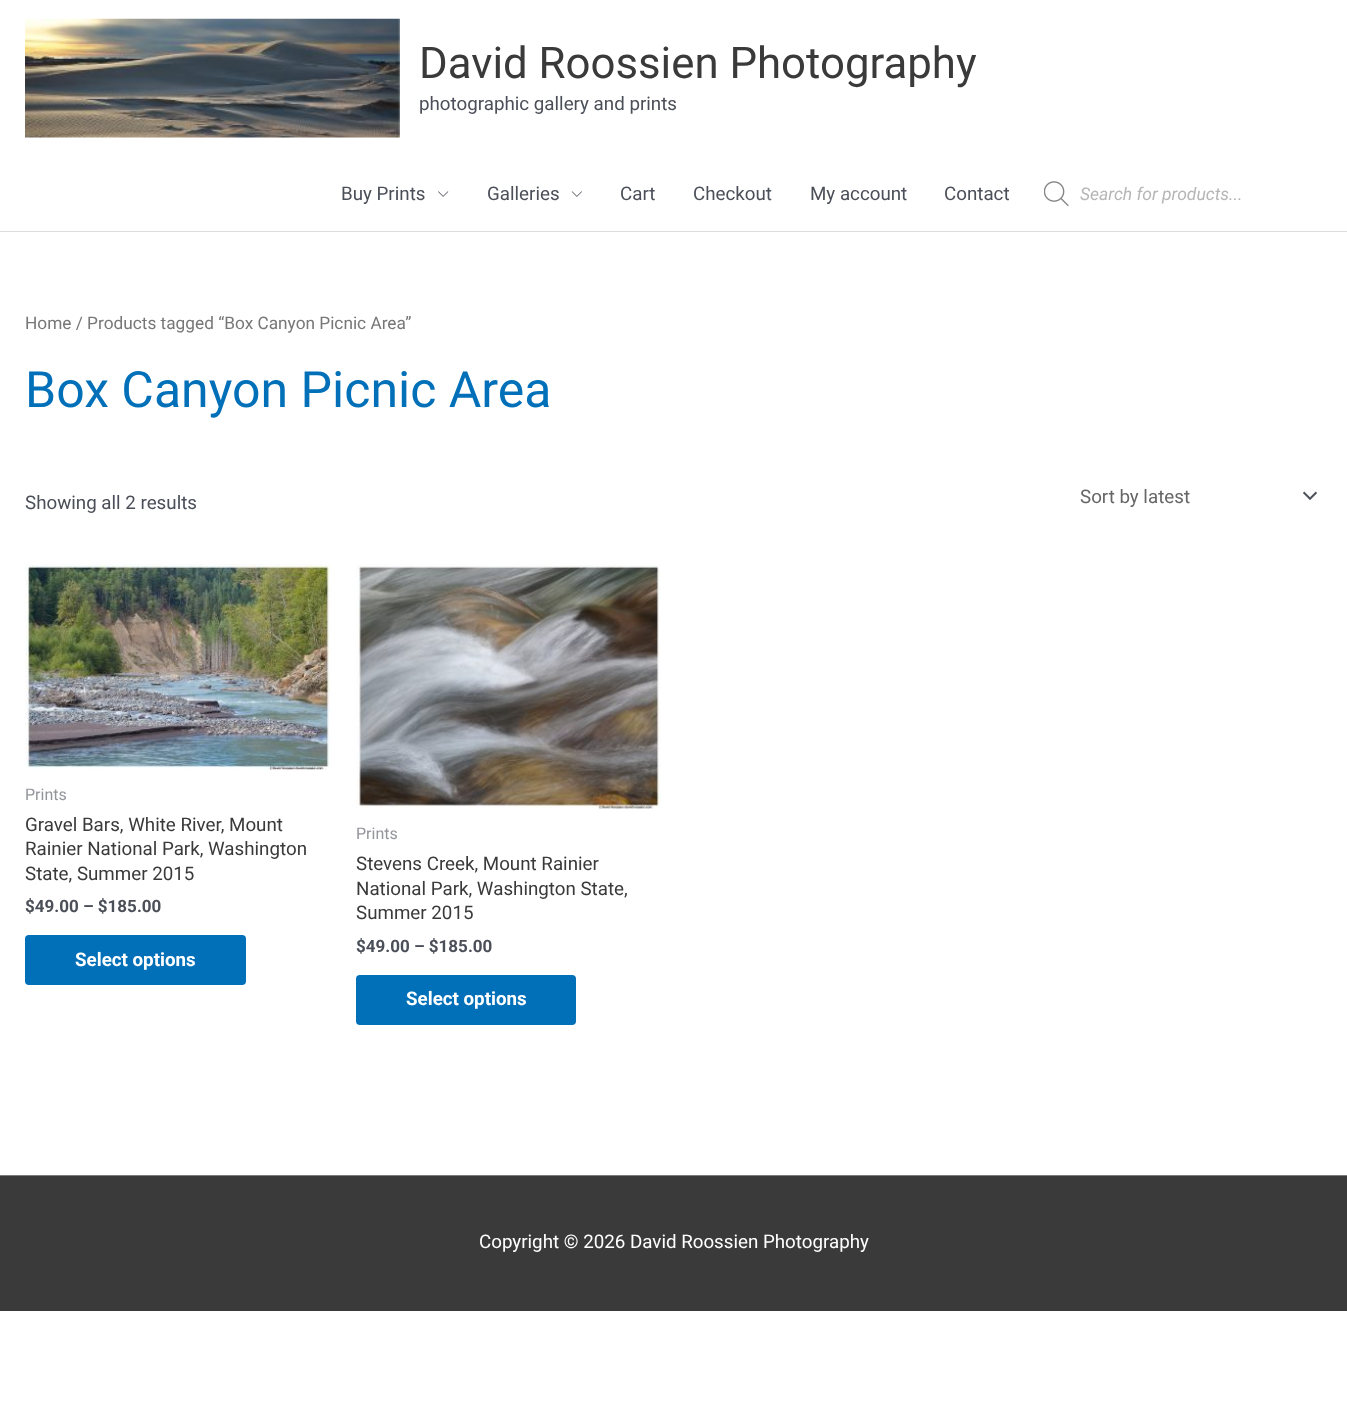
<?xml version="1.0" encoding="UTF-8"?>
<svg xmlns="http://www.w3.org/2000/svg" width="1347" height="1409">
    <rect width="100%" height="100%" fill="#FFFFFF"/>
    <rect x="0" y="231" width="1347" height="1" fill="#DDDDDD"/>
    <image x="25" y="18" width="375" height="120" href="img_01.png"/>
    <text x="419" y="78" font-family="Roboto" font-size="43.75" fill="#3A3A3A">David Roossien Photography</text>
    <text x="419" y="110" font-family="Roboto" font-size="18.75" fill="#4B4F58">photographic gallery and prints</text>
    <text x="341" y="200" font-family="Roboto" font-size="18.75" fill="#4B4F58">Buy Prints</text>
    <image x="438" y="191" width="11" height="6" href="img_02.png"/>
    <text x="487" y="200" font-family="Roboto" font-size="18.75" fill="#4B4F58">Galleries</text>
    <image x="571" y="191" width="11" height="6" href="img_03.png"/>
    <text x="620" y="200" font-family="Roboto" font-size="18.75" fill="#4B4F58">Cart</text>
    <text x="693" y="200" font-family="Roboto" font-size="18.75" fill="#4B4F58">Checkout</text>
    <text x="810" y="200" font-family="Roboto" font-size="18.75" fill="#4B4F58">My account</text>
    <text x="944" y="200" font-family="Roboto" font-size="18.75" fill="#4B4F58">Contact</text>
    <image x="1044" y="181" width="25" height="25" href="img_04.png"/>
    <text x="1080" y="200" font-family="Roboto" font-size="17.5" font-style="italic" fill="#B6B6B6">Search for products...</text>
    <text x="25" y="329" font-family="Roboto" font-size="17.25" fill="#777777">Home / Products tagged “Box Canyon Picnic Area”</text>
    <text x="25" y="407" font-family="Roboto" font-size="50" fill="#0170B9">Box Canyon Picnic Area</text>
    <text x="25" y="509" font-family="Roboto" font-size="18.75" fill="#4B4F58">Showing all 2 results</text>
    <image x="1303" y="491" width="14" height="9" href="img_05.png"/>
    <text x="1080" y="503" font-family="Roboto" font-size="18.75" fill="#666666">Sort by latest</text>
    <image x="25" y="564" width="306" height="206" href="img_06.png"/>
    <text x="25" y="800" font-family="Roboto" font-size="16" fill="#93959B">Prints</text>
    <text font-family="Roboto" font-size="18.75" fill="#3A3A3A">
        <tspan x="25" y="831">Gravel Bars, White River, Mount</tspan>
        <tspan x="25" y="855">Rainier National Park, Washington</tspan>
        <tspan x="25" y="880">State, Summer 2015</tspan>
    </text>
    <text x="25" y="912" font-family="Roboto" font-size="17" font-weight="700" fill="#4B4F58">$49.00 – $185.00</text>
    <rect x="25" y="935" width="221" height="50" rx="4" fill="#0170B9"/>
    <text x="75" y="966" font-family="Roboto" font-size="18.75" font-weight="700" fill="#FFFFFF">Select options</text>
    <image x="356" y="564" width="305" height="245" href="img_07.png"/>
    <text x="356" y="839" font-family="Roboto" font-size="16" fill="#93959B">Prints</text>
    <text font-family="Roboto" font-size="18.75" fill="#3A3A3A">
        <tspan x="356" y="870">Stevens Creek, Mount Rainier</tspan>
        <tspan x="356" y="895">National Park, Washington State,</tspan>
        <tspan x="356" y="919">Summer 2015</tspan>
    </text>
    <text x="356" y="952" font-family="Roboto" font-size="17" font-weight="700" fill="#4B4F58">$49.00 – $185.00</text>
    <rect x="356" y="975" width="220" height="50" rx="4" fill="#0170B9"/>
    <text x="406" y="1005" font-family="Roboto" font-size="18.75" font-weight="700" fill="#FFFFFF">Select options</text>
    <rect x="0" y="1175" width="1347" height="1" fill="#7A7A7A"/>
    <rect x="0" y="1176" width="1347" height="135" fill="#3A3A3A"/>
    <text x="479" y="1248" font-family="Roboto" font-size="18.75" fill="#FFFFFF">Copyright © 2026 David Roossien Photography</text>
</svg>
